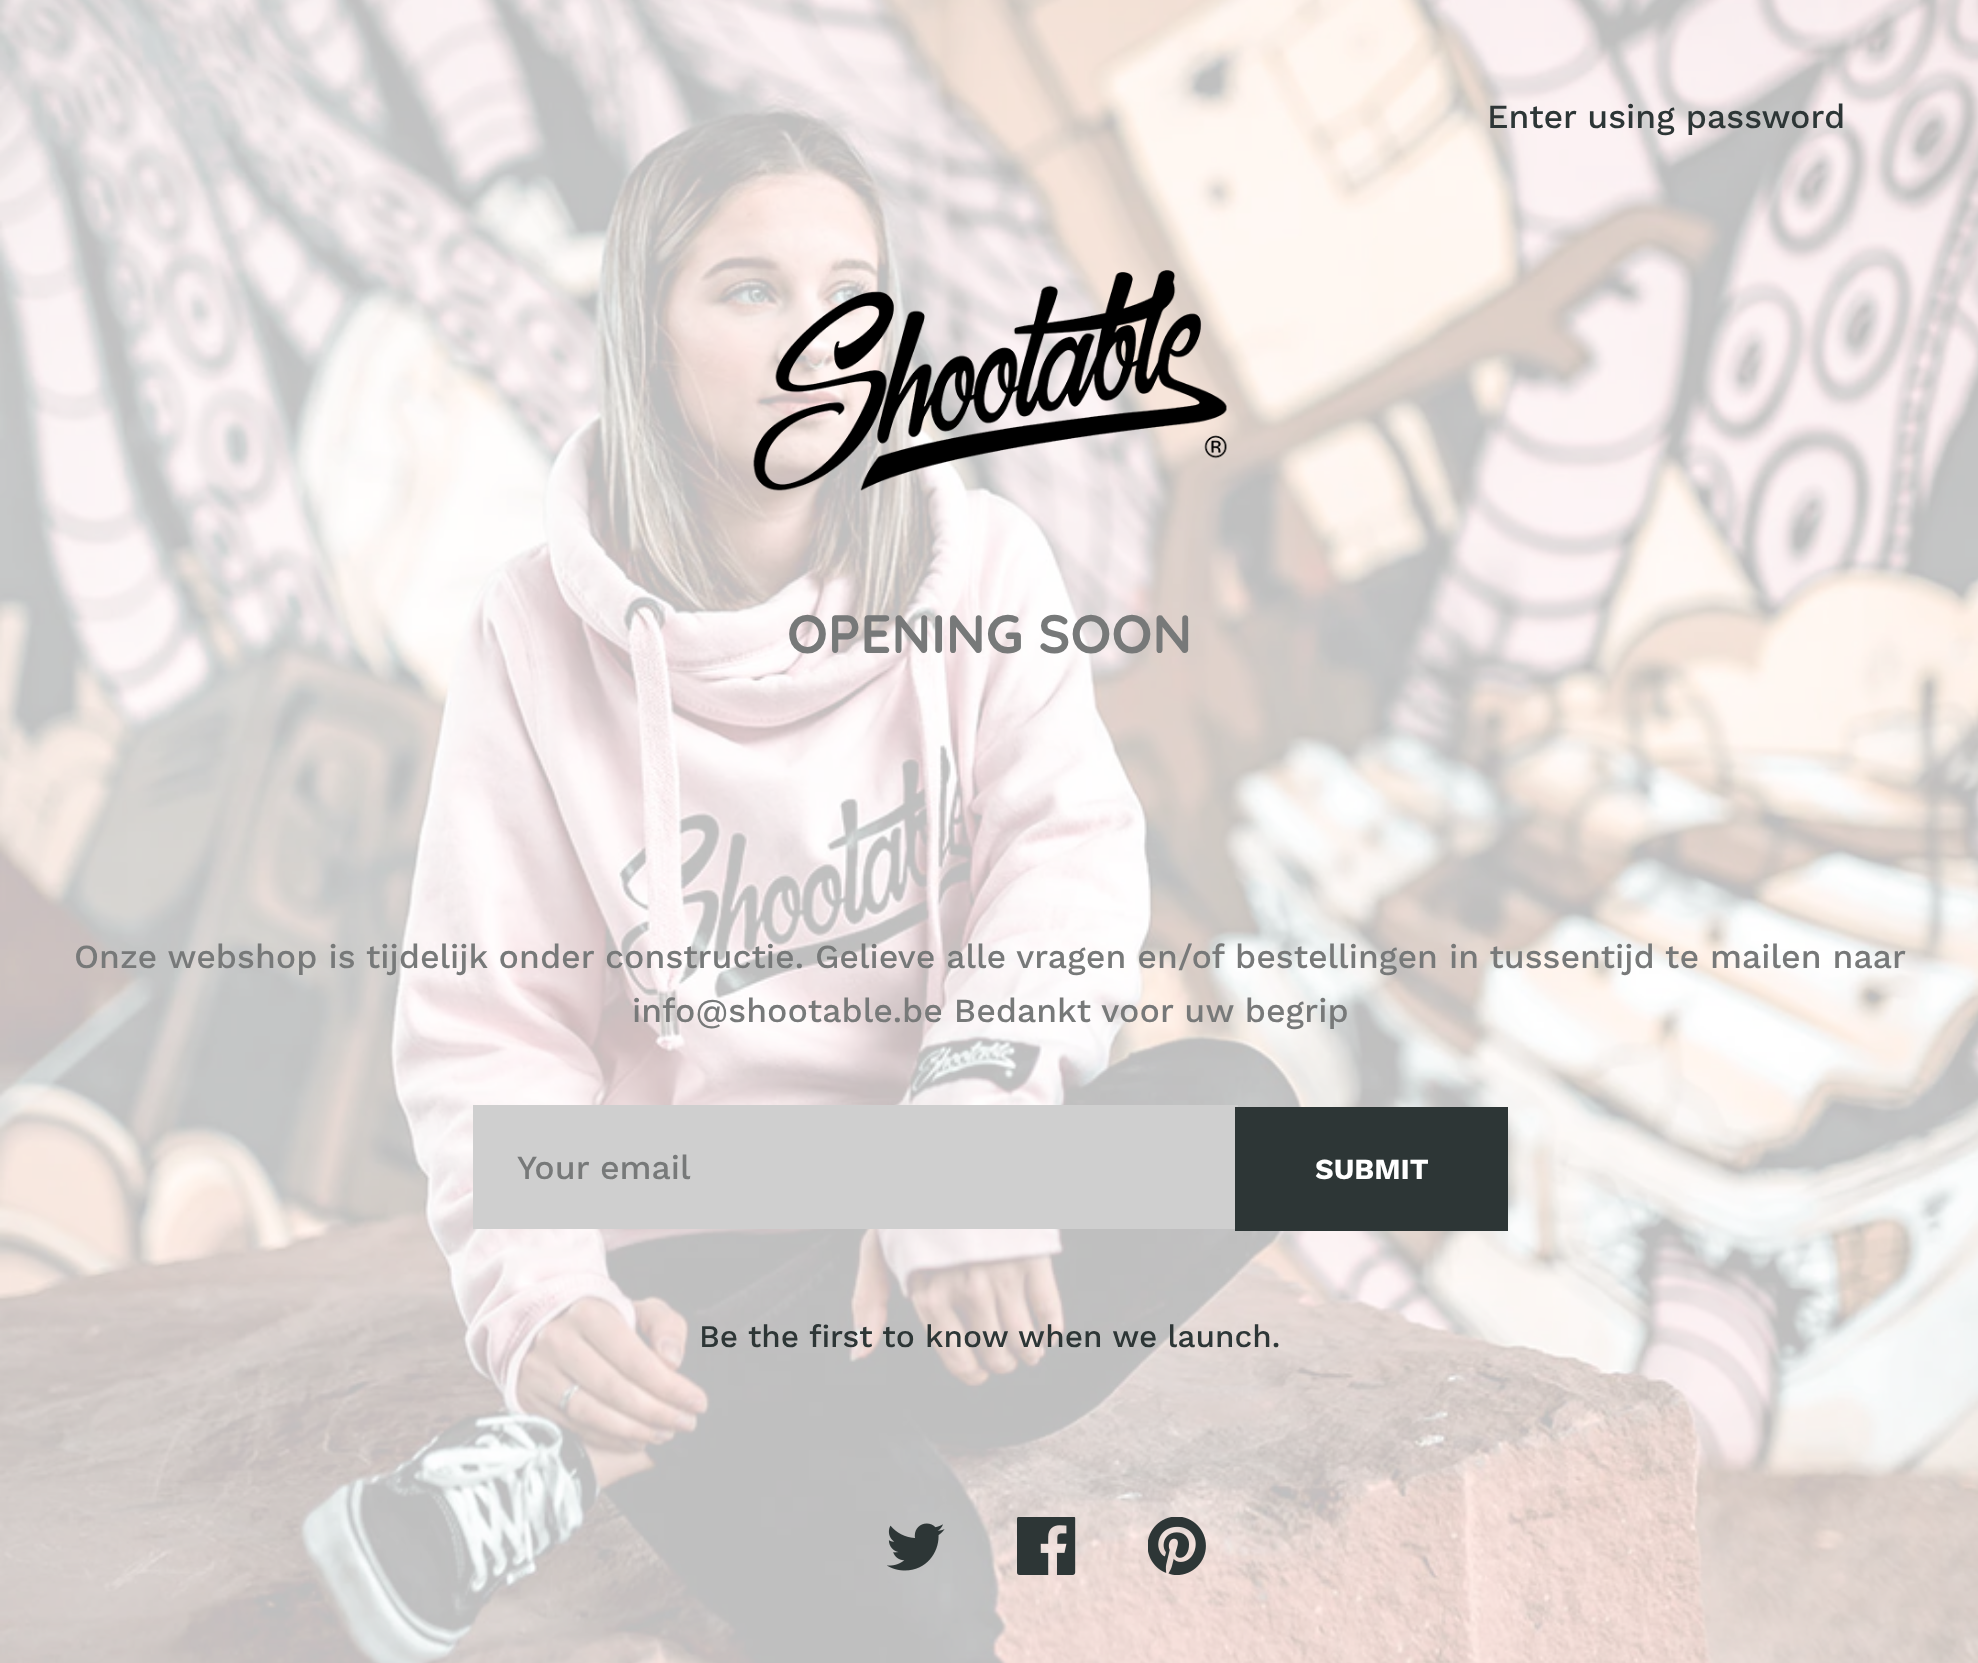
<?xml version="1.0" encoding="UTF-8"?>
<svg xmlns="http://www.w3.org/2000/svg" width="1978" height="1663">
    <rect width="100%" height="100%" fill="#FFFFFF"/>
    <image x="0" y="0" width="1978" height="1663" href="img_01.png"/>
    <text x="1487" y="128" font-family="Work Sans" font-size="33.75" font-weight="500" fill="#2D3636">Enter using password</text>
    <image x="753" y="270" width="474" height="221" href="img_02.png"/>
    <text x="787" y="653" font-family="Quicksand" font-size="54" font-weight="700" fill="#777979">OPENING SOON</text>
    <text x="74" y="968" font-family="Work Sans" font-size="33.75" font-weight="500" fill="#777979">Onze webshop is tijdelijk onder constructie. Gelieve alle vragen en/of bestellingen in tussentijd te mailen naar</text>
    <text x="632" y="1022" font-family="Work Sans" font-size="33.75" font-weight="500" fill="#777979">info@shootable.be Bedankt voor uw begrip</text>
    <rect x="473" y="1105" width="765" height="124" fill="#CFCFCF"/>
    <text x="517" y="1179" font-family="Work Sans" font-size="33.75" font-weight="500" fill="#777979">Your email</text>
    <rect x="1235" y="1107" width="273" height="124" fill="#2D3636"/>
    <text x="1315" y="1179" font-family="Work Sans" font-size="29" font-weight="700" fill="#FFFFFF">SUBMIT</text>
    <text x="699" y="1347" font-family="Work Sans" font-size="31.5" font-weight="500" fill="#2D3636">Be the first to know when we launch.</text>
    <image x="887" y="1523" width="58" height="48" href="img_03.png"/>
    <image x="1017" y="1517" width="59" height="58" href="img_04.png"/>
    <image x="1148" y="1517" width="58" height="58" href="img_05.png"/>
</svg>
